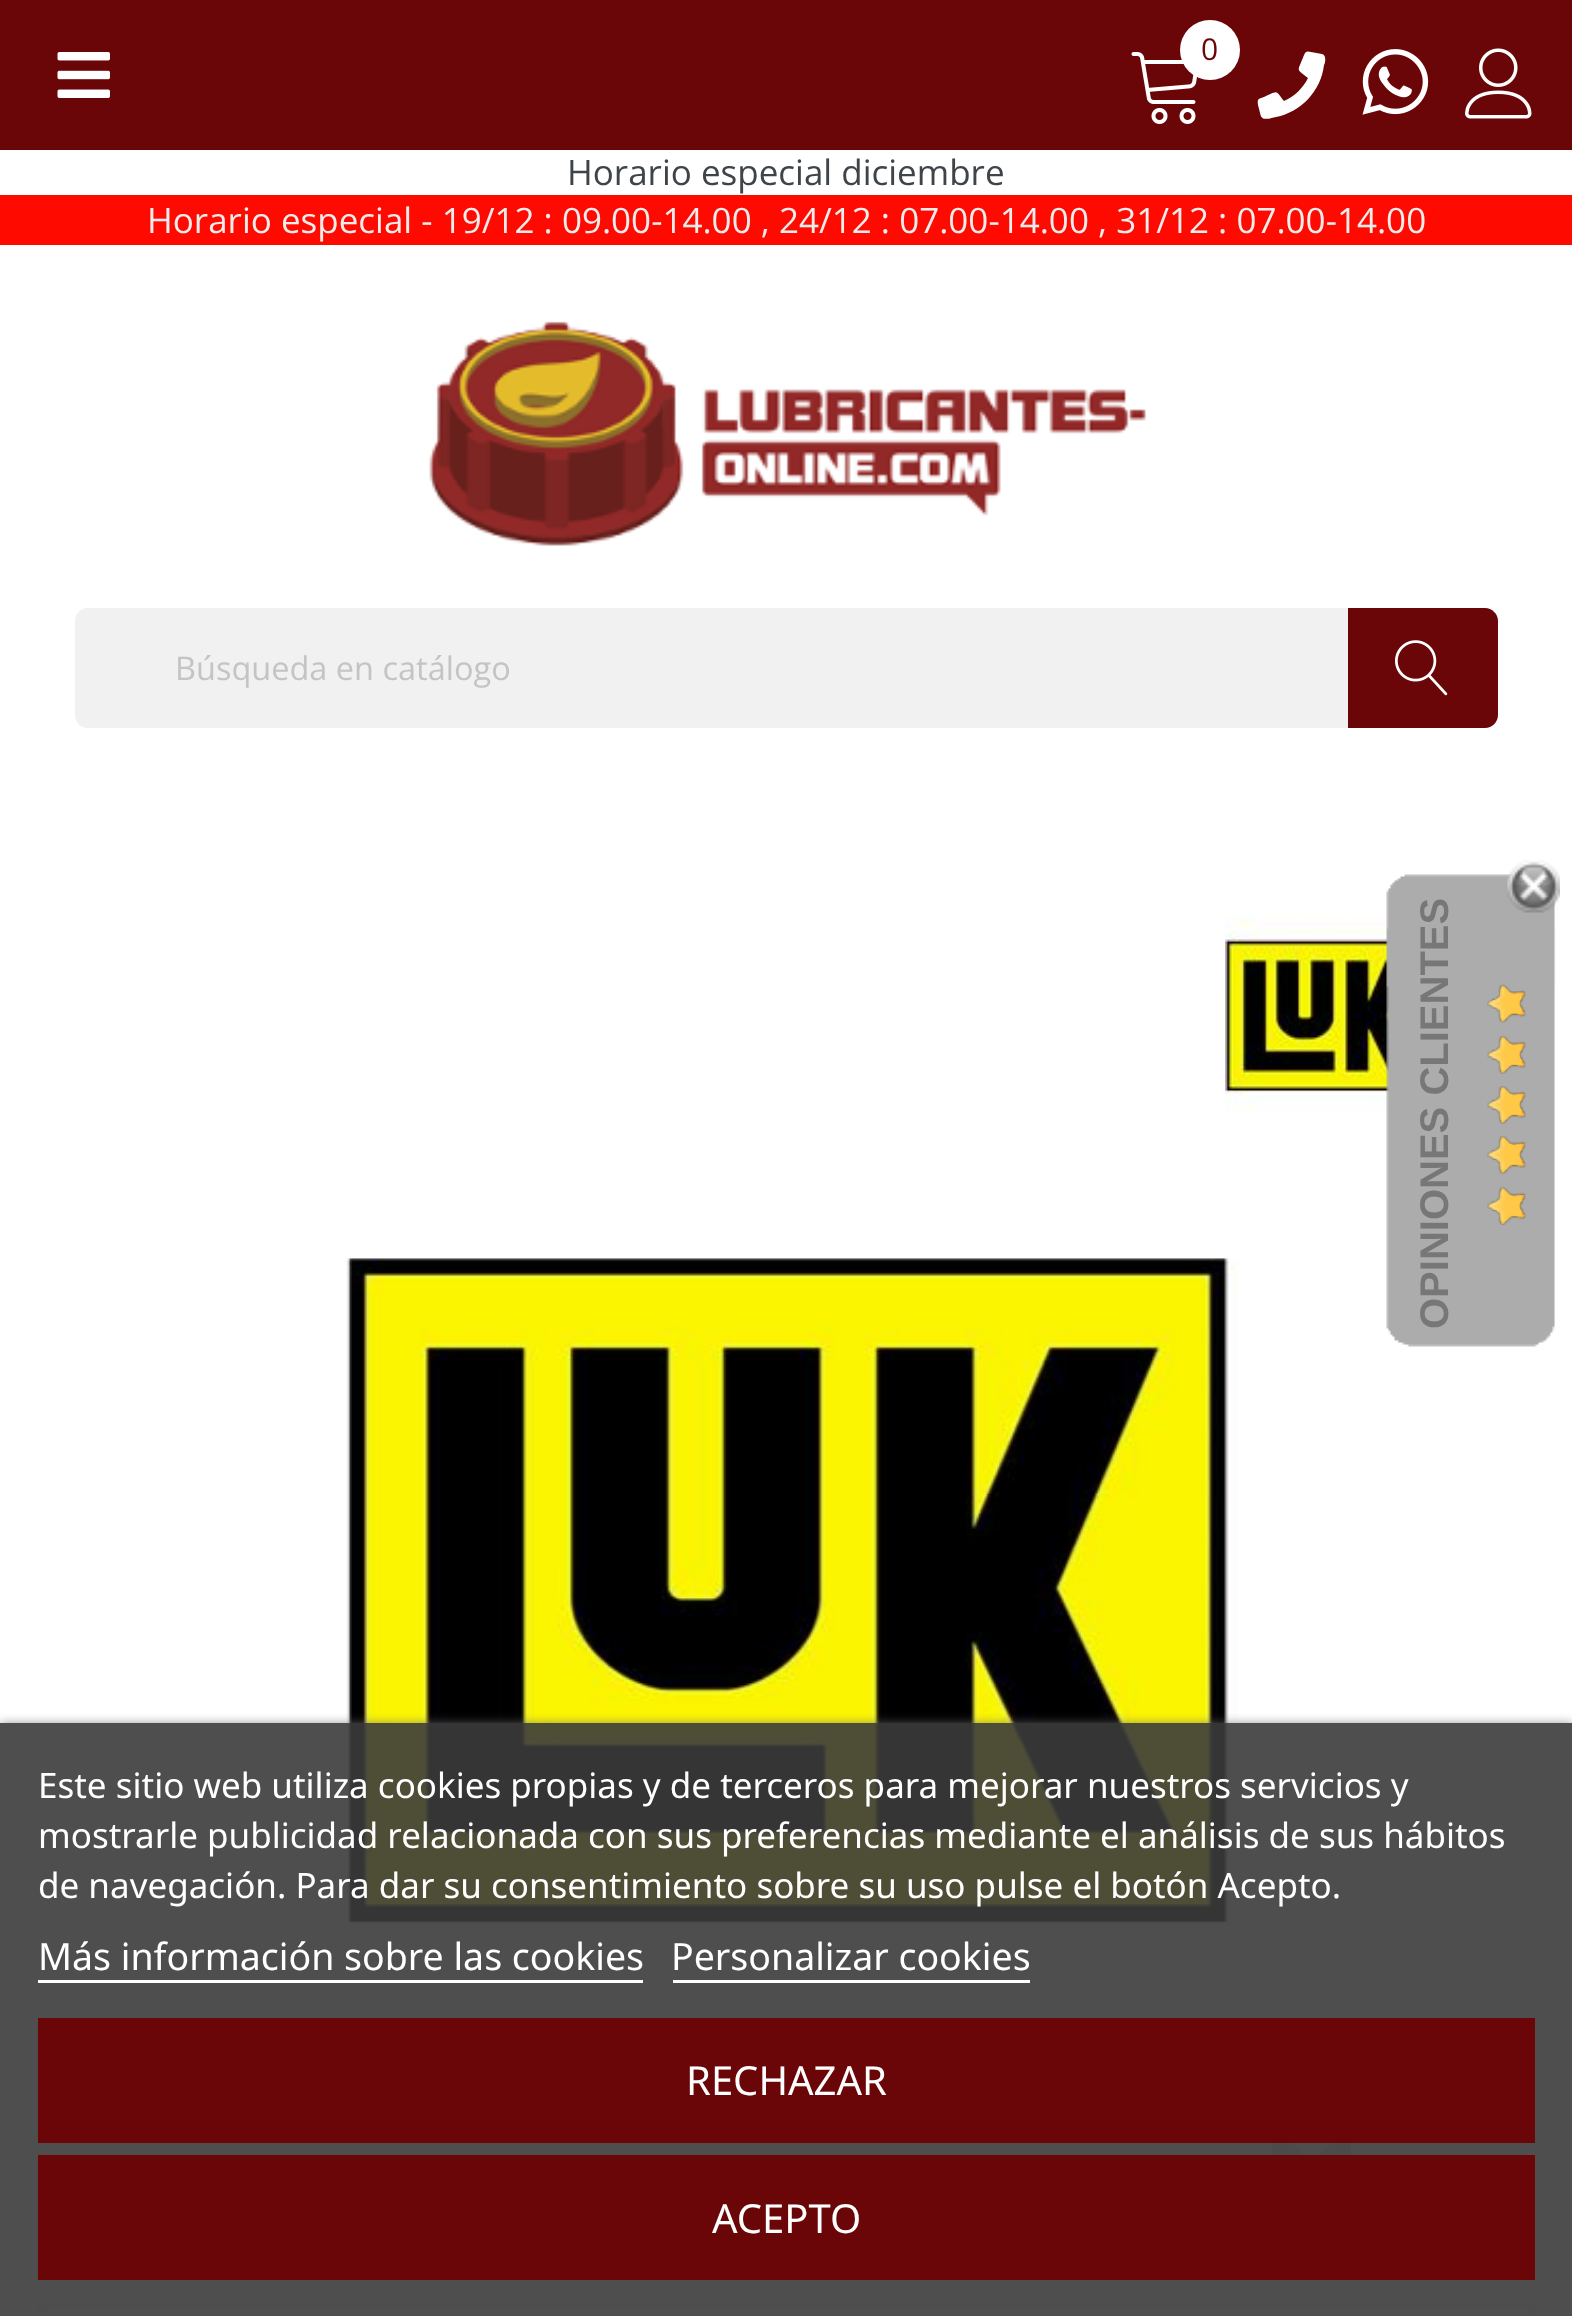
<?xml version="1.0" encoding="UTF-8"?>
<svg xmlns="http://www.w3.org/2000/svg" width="1572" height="2316">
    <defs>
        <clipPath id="clip1"><rect x="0" y="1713" width="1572" height="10"/></clipPath>
        <filter id="blur1" x="-50%" y="-200%" width="200%" height="500%"><feGaussianBlur stdDeviation="6"/></filter>
    </defs>
    <rect width="100%" height="100%" fill="#FFFFFF"/>
    <rect x="0" y="0" width="1572" height="150" fill="#6B0608"/>
    <image x="57" y="52" width="53" height="46" href="img_01.png"/>
    <image x="1131" y="52" width="66" height="72" href="img_02.png"/>
    <circle cx="1210" cy="50" r="30" fill="#FFFFFF"/>
    <text x="1201" y="60" font-family="Open Sans" font-size="30" fill="#6B0608">0</text>
    <path d="M 1322 54 L 1311 52 C 1304 50 1305 54 1302 60 C 1297 72 1297 69 1308 78 C 1303 88 1295 96 1284 101 C 1275 90 1279 90 1264 97 C 1259 99 1257 98 1258 105 C 1262 119 1259 121 1276 117 C 1301 112 1321 91 1324 65 C 1325 64 1327 55 1322 54 Z" fill="#FFFFFF"/>
    <image x="1362" y="49" width="67" height="66" href="img_03.png"/>
    <image x="1465" y="48" width="67" height="71" href="img_04.png"/>
    <text x="567" y="185" font-family="Open Sans" font-size="35" fill="#3E444A">Horario especial diciembre</text>
    <rect x="0" y="195" width="1572" height="50" fill="#FF0A00"/>
    <text x="147" y="233" font-family="Open Sans" font-size="35" fill="#EFECEC">Horario especial - 19/12 : 09.00-14.00 , 24/12 : 07.00-14.00 , 31/12 : 07.00-14.00</text>
    <image x="429" y="321" width="718" height="225" href="img_05.png"/>
    <rect x="75" y="608" width="1423" height="120" rx="13" fill="#F1F1F1"/>
    <text x="175" y="680" font-family="Open Sans" font-size="32.5" fill="#C4C4C4">Búsqueda en catálogo</text>
    <path d="M 1348 608 H 1485 C 1492 608 1498 614 1498 621 V 715 C 1498 722 1492 728 1485 728 H 1348 Z" fill="#6B0608"/>
    <image x="1395" y="640" width="53" height="56" href="img_06.png"/>
    <image x="1225" y="915" width="164" height="197" href="img_10.png"/>
    <image x="1386" y="874" width="170" height="473" href="img_08.png"/>
    <image x="1507" y="860" width="53" height="53" href="img_07.png"/>
    <text x="1448" y="1329" transform="rotate(-90 1448 1329)" font-family="Liberation Sans" font-size="40" font-weight="700" fill="#777777">OPINIONES CLIENTES</text>
    <image x="1487" y="984" width="39" height="241" href="img_09.png"/>
    <image x="346" y="1258" width="894" height="680" href="img_11.png"/>
    <path d="M 1316 2104 L 1332 2089 L 1319 2077 H 1351 V 2108 L 1338 2096 L 1323 2111 Z M 1316 2127 L 1323 2120 L 1338 2136 L 1351 2123 V 2155 H 1319 L 1332 2142 Z M 1307 2127 L 1292 2142 L 1304 2155 H 1272 V 2123 L 1285 2136 L 1300 2120 Z M 1307 2104 L 1300 2111 L 1285 2096 L 1272 2108 V 2077 H 1304 L 1292 2089 Z" fill="#E2E2E2"/>
    <rect x="39.5" y="2304.5" width="1494" height="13" fill="none" stroke="#F0F0F0" stroke-width="3"/>
    <g clip-path="url(#clip1)">
        <rect x="0" y="1725" width="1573" height="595" fill="#707070" filter="url(#blur1)"/>
    </g>
    <rect x="0" y="1723" width="1572" height="593" fill="#3B3B3B" fill-opacity="0.9"/>
    <text font-family="Noto Sans" font-size="35" fill="#FFFFFF">
        <tspan x="38" y="1798">Este sitio web utiliza cookies propias y de terceros para mejorar nuestros servicios y</tspan>
        <tspan x="38" y="1848">mostrarle publicidad relacionada con sus preferencias mediante el análisis de sus hábitos</tspan>
        <tspan x="38" y="1898">de navegación. Para dar su consentimiento sobre su uso pulse el botón Acepto.</tspan>
    </text>
    <text x="38" y="1970" font-family="Noto Sans" font-size="37.5" fill="#FFFFFF">Más información sobre las cookies</text>
    <rect x="38" y="1980" width="605" height="3" fill="#FFFFFF"/>
    <text x="671" y="1970" font-family="Noto Sans" font-size="37.5" fill="#FFFFFF">Personalizar cookies</text>
    <rect x="673" y="1980" width="357" height="3" fill="#FFFFFF"/>
    <rect x="38" y="2018" width="1497" height="125" fill="#6B0608"/>
    <text x="686" y="2095" font-family="Noto Sans" font-size="40" fill="#FFFFFF">RECHAZAR</text>
    <rect x="38" y="2155" width="1497" height="125" fill="#6B0608"/>
    <text x="712" y="2233" font-family="Noto Sans" font-size="40" fill="#FFFFFF">ACEPTO</text>
</svg>
